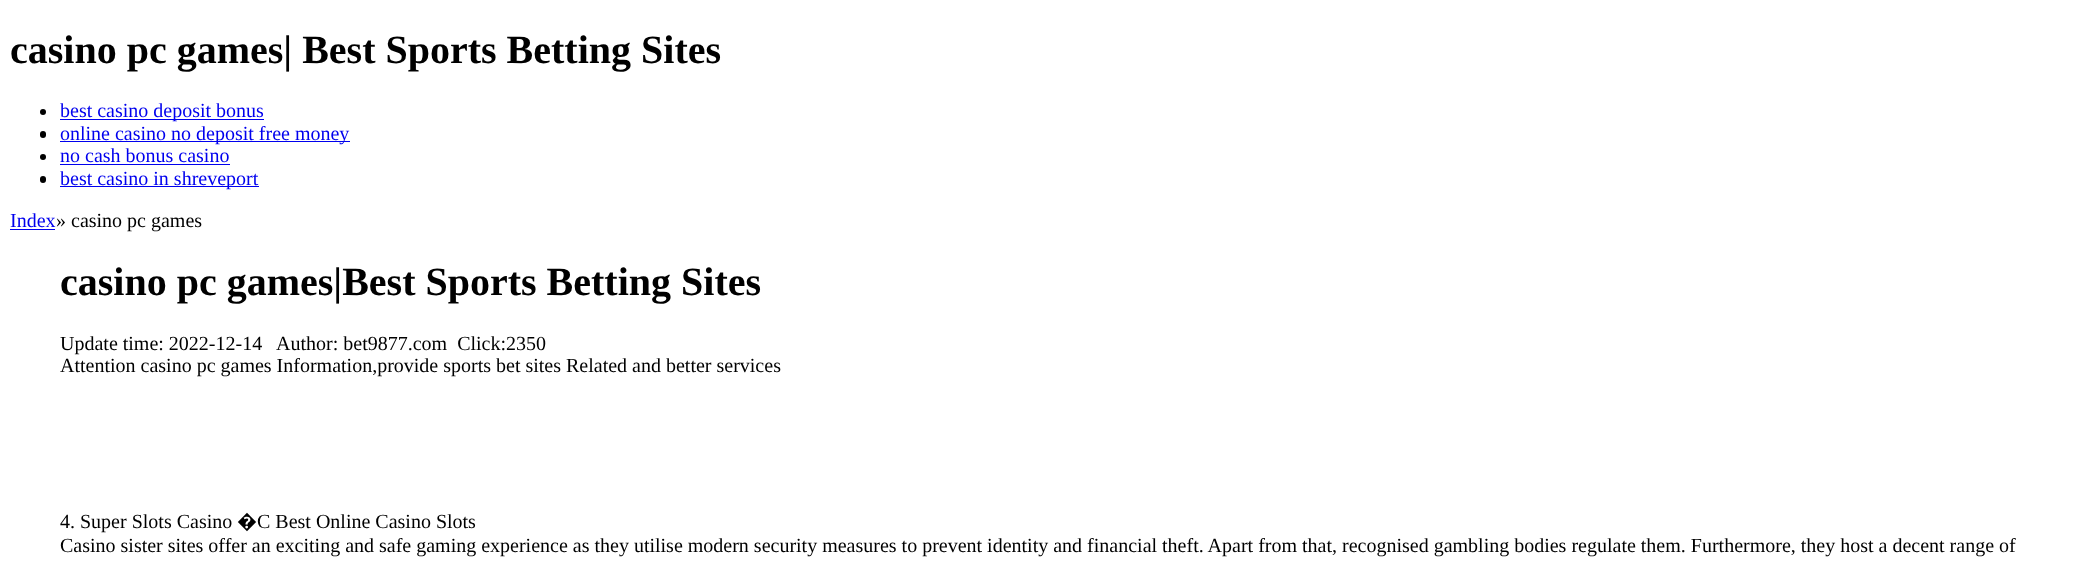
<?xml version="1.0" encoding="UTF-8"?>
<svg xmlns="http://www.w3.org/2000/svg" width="2073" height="568">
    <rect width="100%" height="100%" fill="#FFFFFF"/>
    <text x="10" y="63" font-family="Liberation Serif" font-size="40" font-weight="700" fill="#000000">casino pc games| Best Sports Betting Sites</text>
    <circle cx="43" cy="112" r="3" fill="#000000"/>
    <rect x="60" y="119" width="204" height="1" fill="#0000EE"/>
    <text x="60" y="117" font-family="Liberation Serif" font-size="20" fill="#0000EE">best casino deposit bonus</text>
    <rect x="40" y="131" width="6" height="7" rx="3" fill="#000000"/>
    <rect x="60" y="141" width="290" height="1" fill="#0000EE"/>
    <text x="60" y="140" font-family="Liberation Serif" font-size="20" fill="#0000EE">online casino no deposit free money</text>
    <circle cx="43" cy="157" r="3" fill="#000000"/>
    <text x="60" y="162" font-family="Liberation Serif" font-size="20" fill="#0000EE">no cash bonus casino</text>
    <rect x="60" y="164" width="170" height="1" fill="#0000EE"/>
    <rect x="40" y="176" width="6" height="7" rx="3" fill="#000000"/>
    <rect x="60" y="186" width="199" height="1" fill="#0000EE"/>
    <text x="60" y="185" font-family="Liberation Serif" font-size="20" fill="#0000EE">best casino in shreveport</text>
    <text x="10" y="227" font-family="Liberation Serif" font-size="20" fill="#0000EE">Index</text>
    <rect x="10" y="229" width="45" height="1" fill="#0000EE"/>
    <text x="56" y="227" font-family="Liberation Serif" font-size="20" fill="#000000">» casino pc games</text>
    <text x="60" y="295" font-family="Liberation Serif" font-size="40" font-weight="700" fill="#000000">casino pc games|Best Sports Betting Sites</text>
    <text font-family="Liberation Serif" font-size="20" fill="#000000" xml:space="preserve"><tspan x="60" y="350">Update time: 2022-12-14   Author: bet9877.com  Click:2350</tspan><tspan x="60" y="372">Attention casino pc games Information,provide sports bet sites Related and better services</tspan></text>
    <text x="60" y="528" font-family="Liberation Serif" font-size="20" fill="#000000">4. Super Slots Casino</text>
    <text x="237" y="528" font-family="Noto Sans" font-size="20" fill="#000000">�</text>
    <text x="257" y="528" font-family="Liberation Serif" font-size="20" fill="#000000">C Best Online Casino Slots</text>
    <text x="60" y="552" font-family="Liberation Serif" font-size="20" fill="#000000">Casino sister sites offer an exciting and safe gaming experience as they utilise modern security measures to prevent identity and financial theft. Apart from that, recognised gambling bodies regulate them. Furthermore, they host a decent range of</text>
</svg>
